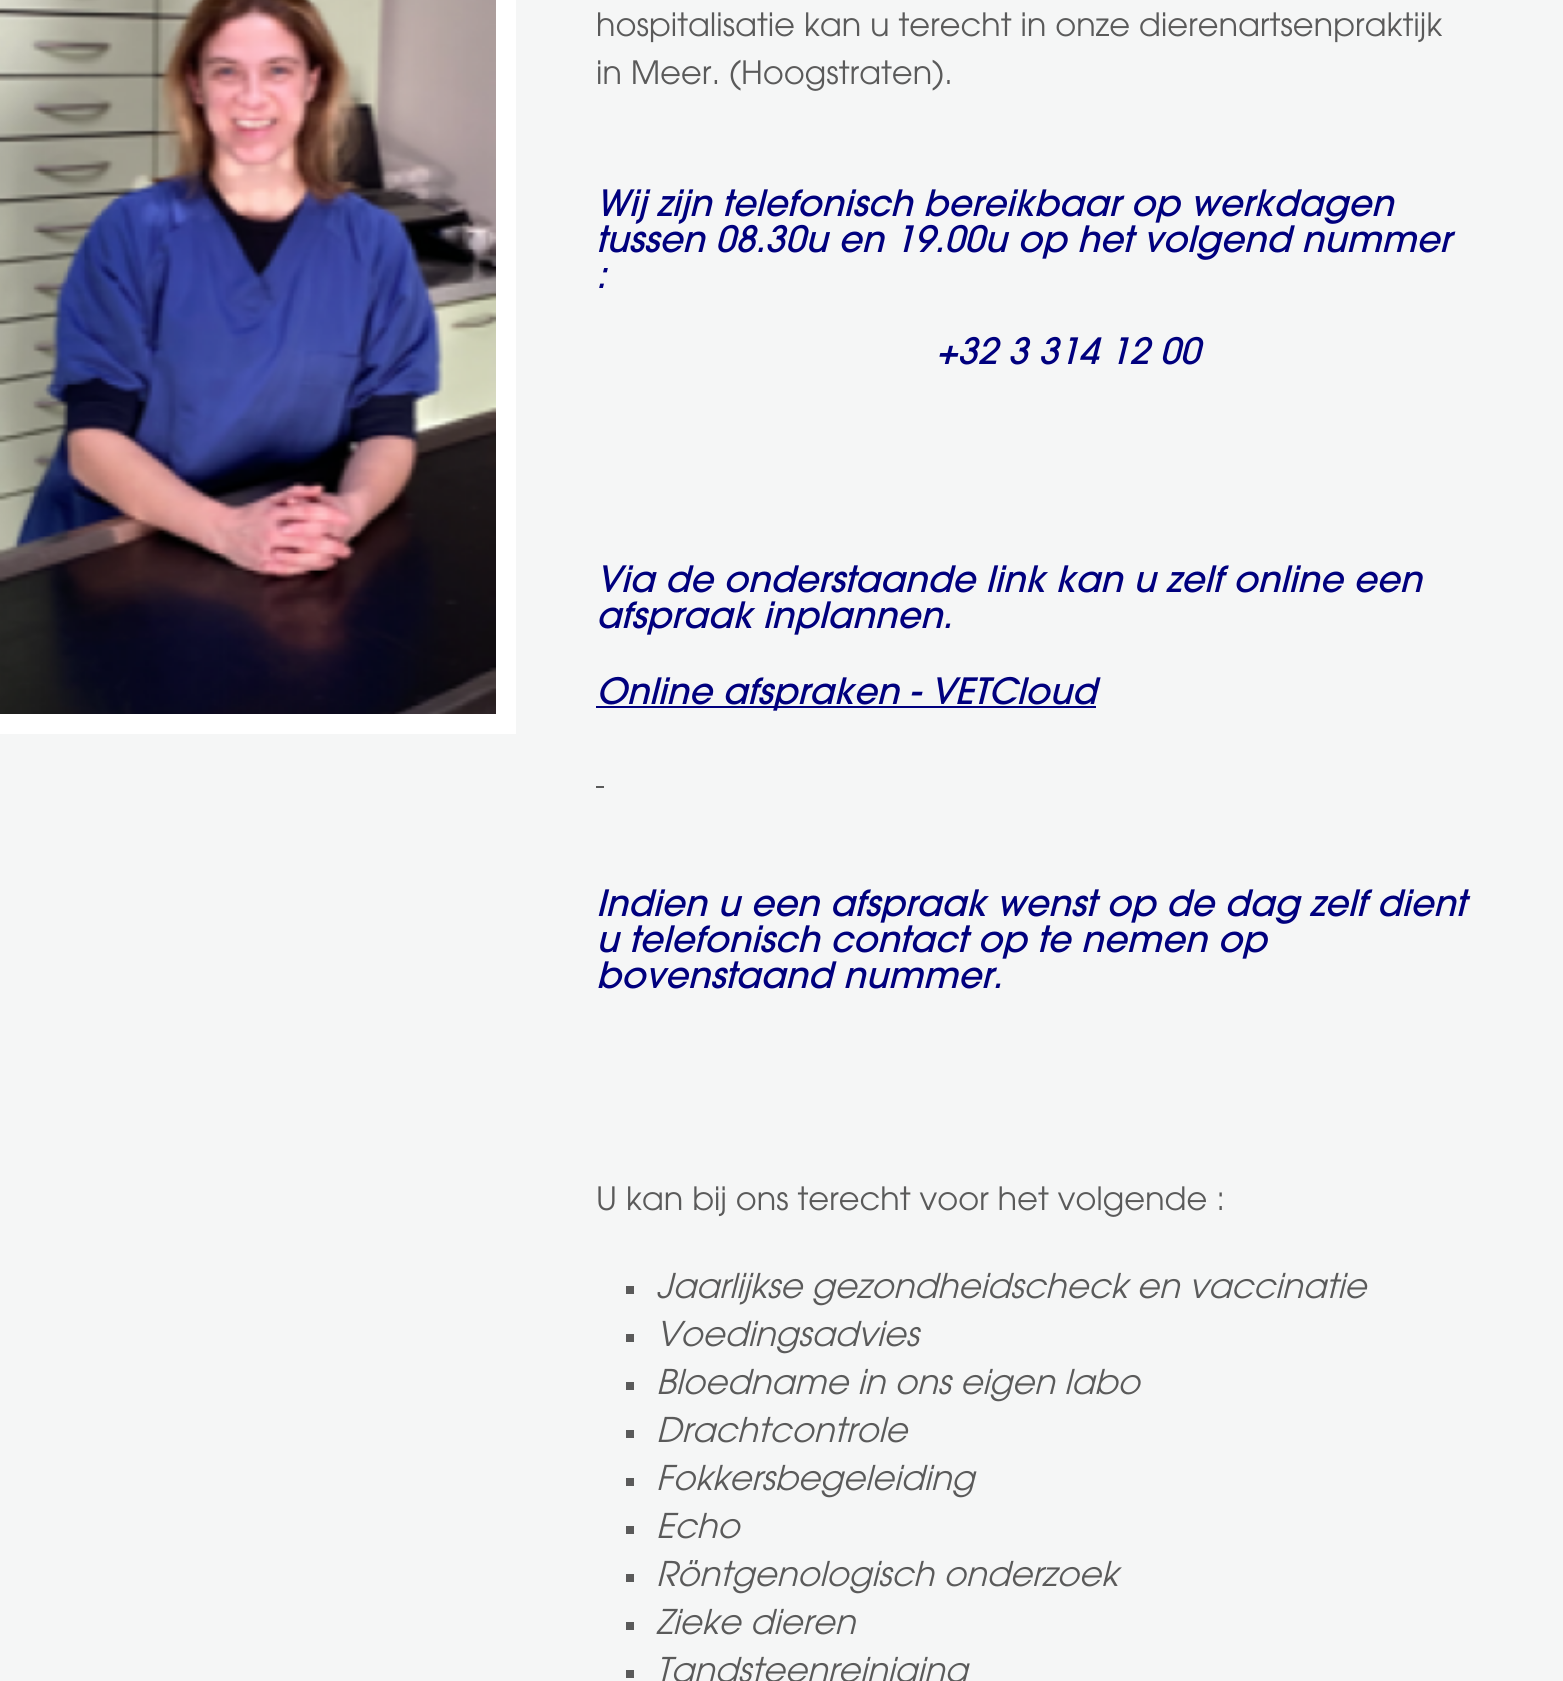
<?xml version="1.0" encoding="UTF-8"?>
<svg xmlns="http://www.w3.org/2000/svg" width="1563" height="1681">
    <rect width="100%" height="100%" fill="#F5F6F6"/>
    <rect x="0" y="0" width="516" height="734" fill="#FFFFFF"/>
    <image x="0" y="0" width="496" height="714" href="img_01.png"/>
    <image x="598" y="12" width="844" height="31" href="img_02.png"/>
    <image x="598" y="59" width="352" height="32" href="img_03.png"/>
    <image x="603" y="189" width="792" height="35" href="img_04.png"/>
    <image x="598" y="224" width="858" height="36" href="img_05.png"/>
    <image x="599" y="268" width="9" height="20" href="img_06.png"/>
    <image x="939" y="336" width="265" height="29" href="img_07.png"/>
    <image x="603" y="565" width="820" height="28" href="img_08.png"/>
    <image x="599" y="601" width="352" height="34" href="img_09.png"/>
    <rect x="596" y="706" width="500" height="2" fill="#00007E"/>
    <image x="600" y="676" width="501" height="35" href="img_10.png"/>
    <rect x="596" y="786" width="8" height="2" fill="#5A5A5A"/>
    <image x="598" y="889" width="873" height="35" href="img_11.png"/>
    <image x="600" y="925" width="668" height="34" href="img_12.png"/>
    <image x="598" y="961" width="403" height="28" href="img_13.png"/>
    <image x="598" y="1186" width="624" height="31" href="img_14.png"/>
    <rect x="626" y="1286" width="8" height="8" fill="#5A5A5A"/>
    <image x="657" y="1272" width="711" height="34" href="img_15.png"/>
    <rect x="626" y="1334" width="8" height="8" fill="#5A5A5A"/>
    <image x="662" y="1320" width="259" height="34" href="img_16.png"/>
    <rect x="626" y="1382" width="8" height="8" fill="#5A5A5A"/>
    <image x="658" y="1368" width="483" height="34" href="img_17.png"/>
    <rect x="626" y="1430" width="8" height="8" fill="#5A5A5A"/>
    <image x="658" y="1416" width="251" height="27" href="img_18.png"/>
    <rect x="626" y="1478" width="8" height="8" fill="#5A5A5A"/>
    <image x="658" y="1464" width="319" height="34" href="img_19.png"/>
    <rect x="626" y="1526" width="8" height="8" fill="#5A5A5A"/>
    <image x="658" y="1512" width="83" height="27" href="img_20.png"/>
    <rect x="626" y="1574" width="8" height="8" fill="#5A5A5A"/>
    <image x="658" y="1560" width="464" height="34" href="img_21.png"/>
    <rect x="626" y="1622" width="8" height="8" fill="#5A5A5A"/>
    <image x="656" y="1608" width="200" height="27" href="img_22.png"/>
    <rect x="626" y="1670" width="8" height="8" fill="#5A5A5A"/>
    <image x="662" y="1656" width="308" height="25" href="img_23.png"/>
</svg>
